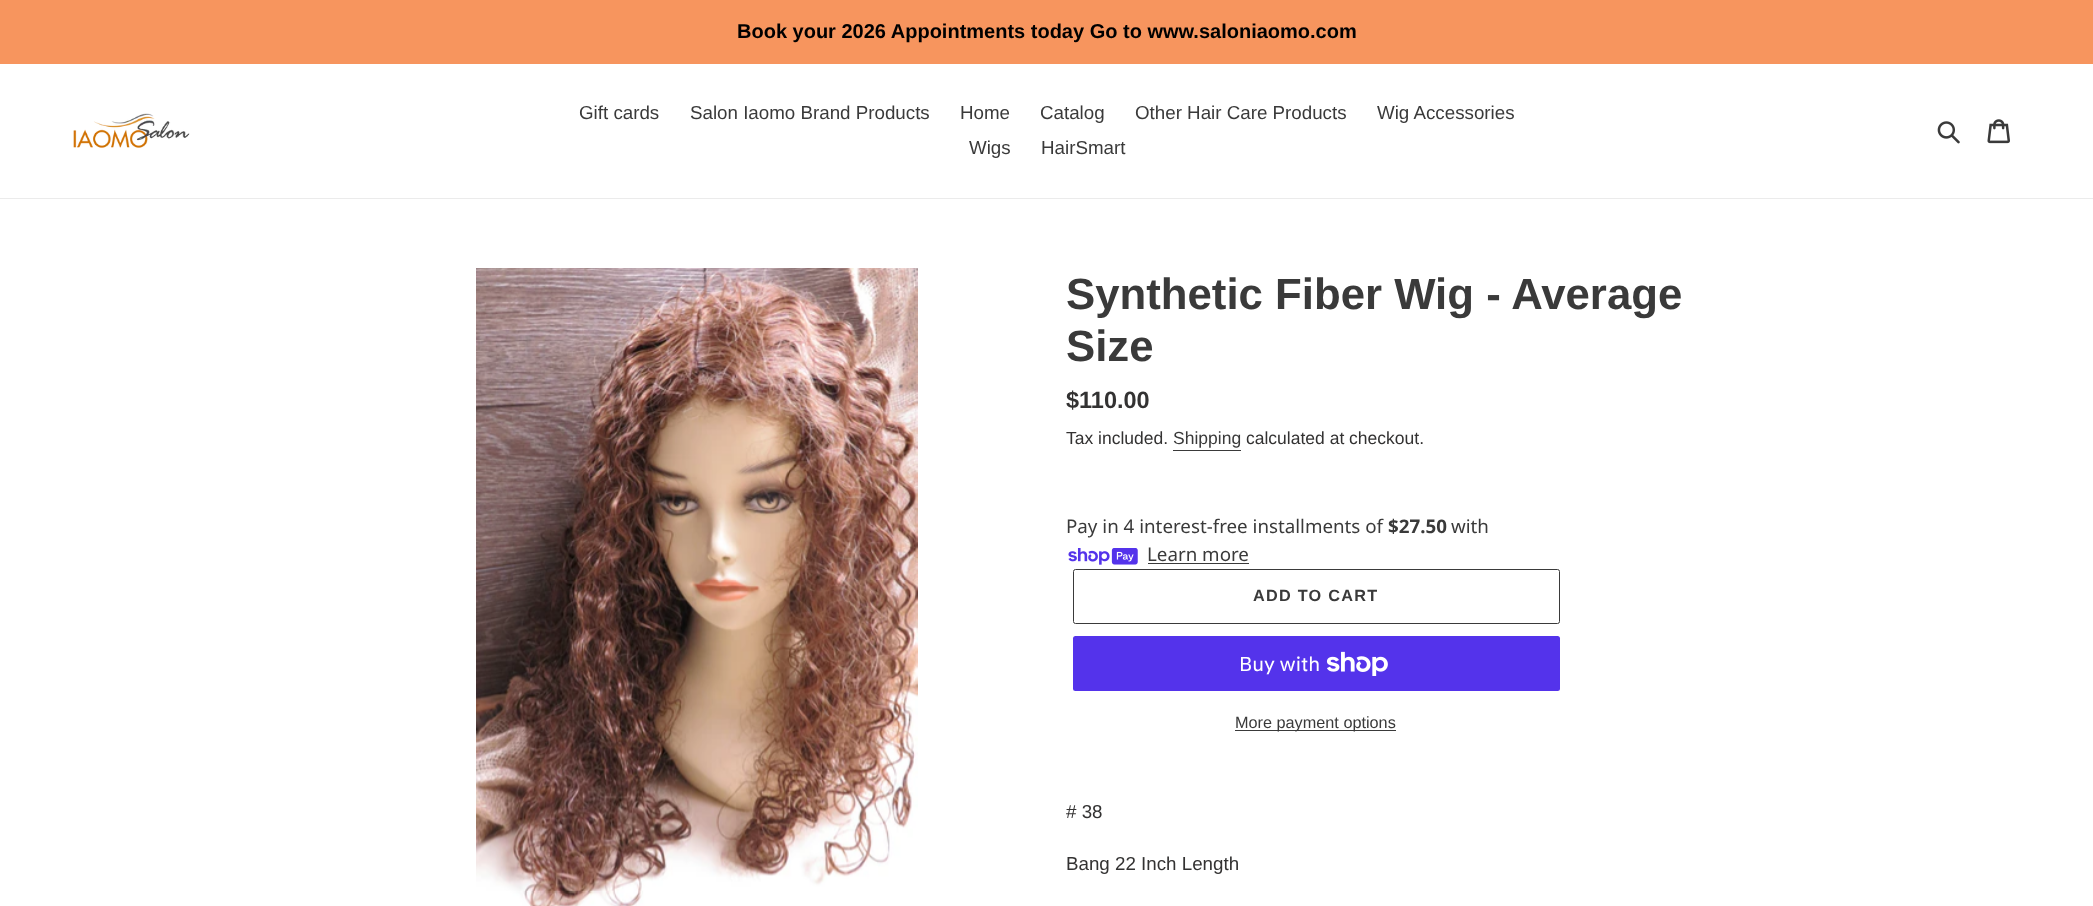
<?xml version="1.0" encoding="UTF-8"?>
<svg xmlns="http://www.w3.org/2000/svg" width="2093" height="906">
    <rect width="100%" height="100%" fill="#FFFFFF"/>
    <rect x="0" y="0" width="2093" height="64" fill="#F7955E"/>
    <text x="737" y="38" font-family="Liberation Sans" font-size="20" font-weight="700" fill="#000000">Book your 2026 Appointments today Go to www.saloniaomo.com</text>
    <rect x="0" y="198" width="2093" height="1" fill="#EBEBEB"/>
    <image x="73" y="113" width="117" height="35" href="img_01.png"/>
    <text x="579" y="119" font-family="Liberation Sans" font-size="18.75" fill="#3A3A3A">Gift cards</text>
    <text x="690" y="119" font-family="Liberation Sans" font-size="18.75" fill="#3A3A3A">Salon Iaomo Brand Products</text>
    <text x="960" y="119" font-family="Liberation Sans" font-size="18.75" fill="#3A3A3A">Home</text>
    <text x="1040" y="119" font-family="Liberation Sans" font-size="18.75" fill="#3A3A3A">Catalog</text>
    <text x="1135" y="119" font-family="Liberation Sans" font-size="18.75" fill="#3A3A3A">Other Hair Care Products</text>
    <text x="1377" y="119" font-family="Liberation Sans" font-size="18.75" fill="#3A3A3A">Wig Accessories</text>
    <text x="969" y="154" font-family="Liberation Sans" font-size="18.75" fill="#3A3A3A">Wigs</text>
    <text x="1041" y="154" font-family="Liberation Sans" font-size="18.75" fill="#3A3A3A">HairSmart</text>
    <image x="1937" y="121" width="23" height="23" href="img_02.png"/>
    <image x="1987" y="119" width="23" height="25" href="img_03.png"/>
    <image x="476" y="268" width="442" height="638" href="img_04.png"/>
    <text font-family="Liberation Sans" font-size="43.75" font-weight="700" fill="#3A3A3A">
        <tspan x="1066" y="309">Synthetic Fiber Wig - Average</tspan>
        <tspan x="1066" y="361">Size</tspan>
    </text>
    <text x="1066" y="408" font-family="Liberation Sans" font-size="23.5" font-weight="700" fill="#333232">$110.00</text>
    <text x="1066" y="444" font-family="Liberation Sans" font-size="17.5" fill="#333232">Tax included.</text>
    <text x="1173" y="444" font-family="Liberation Sans" font-size="17.5" fill="#3A3A3A">Shipping</text>
    <rect x="1173" y="450" width="68" height="1" fill="#3A3A3A"/>
    <text x="1246" y="444" font-family="Liberation Sans" font-size="17.5" fill="#333232">calculated at checkout.</text>
    <text x="1066" y="533" font-family="Noto Sans" font-size="18.75" fill="#3A3A3A">Pay in 4 interest-free installments of</text>
    <text x="1388" y="533" font-family="Noto Sans" font-size="18.75" font-weight="700" fill="#3A3A3A">$27.50</text>
    <text x="1451" y="533" font-family="Noto Sans" font-size="18.75" fill="#3A3A3A">with</text>
    <image x="1068" y="548" width="70" height="17" href="img_05.png"/>
    <text x="1147" y="561" font-family="Noto Sans" font-size="18.75" fill="#3A3A3A">Learn more</text>
    <rect x="1148" y="563" width="101" height="1" fill="#3A3A3A"/>
    <rect x="1073.5" y="569.5" width="486" height="54" rx="2" fill="none" stroke="#3A3A3A"/>
    <text x="1253" y="601" font-family="Liberation Sans" font-size="16.25" font-weight="700" letter-spacing="1.25" fill="#3A3A3A">ADD TO CART</text>
    <rect x="1073" y="636" width="487" height="55" rx="2.5" fill="#5433EB"/>
    <text x="1239" y="671" font-family="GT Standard" font-size="20" fill="#FFFFFF">Buy with</text>
    <image x="1326" y="651" width="62" height="25" href="img_06.png"/>
    <rect x="1235" y="730" width="161" height="1" fill="#3A3A3A"/>
    <text x="1235" y="728" font-family="Liberation Sans" font-size="16.25" fill="#3A3A3A">More payment options</text>
    <text x="1066" y="818" font-family="Liberation Sans" font-size="18.75" fill="#333232"># 38</text>
    <text x="1066" y="870" font-family="Liberation Sans" font-size="18.75" fill="#333232">Bang 22 Inch Length</text>
</svg>
